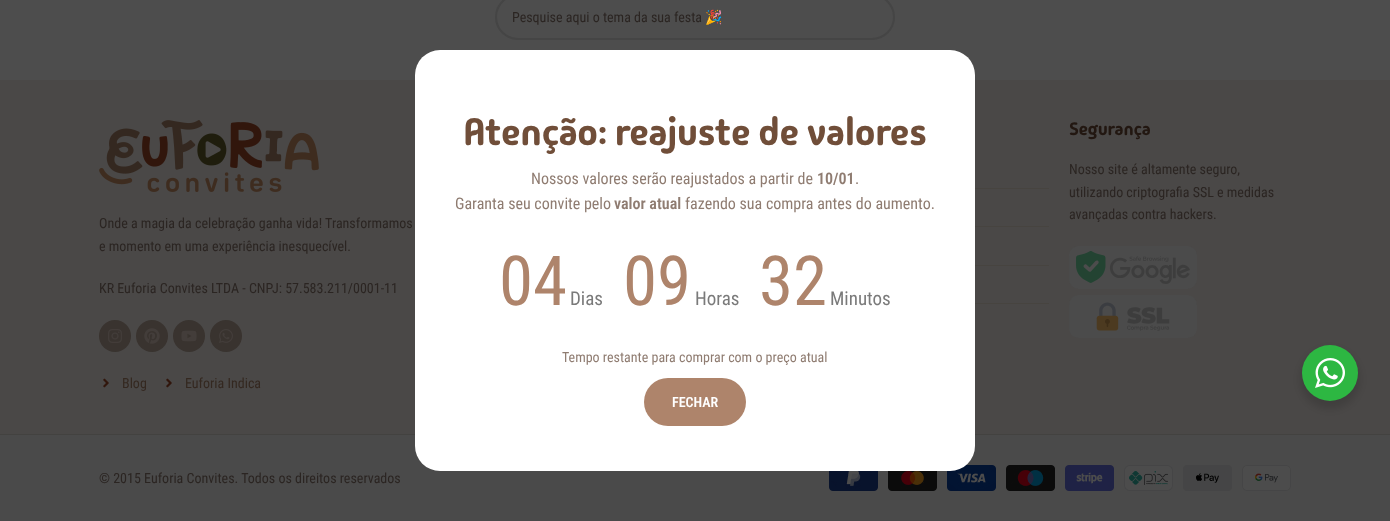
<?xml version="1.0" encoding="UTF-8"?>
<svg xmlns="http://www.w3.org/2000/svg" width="1390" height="521">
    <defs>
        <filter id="blur1" x="-50%" y="-200%" width="200%" height="500%"><feGaussianBlur stdDeviation="4"/></filter>
    </defs>
    <rect width="100%" height="100%" fill="#4D4D4D"/>
    <rect x="496" y="-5" width="398" height="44" rx="22" fill="none" stroke="#454545" stroke-width="2"/>
    <text x="512" y="22" font-family="Roboto Condensed" font-size="14" fill="#2B2522">Pesquise aqui o tema da sua festa</text>
    <text x="705" y="22" font-family="Noto Color Emoji" font-size="14" fill="#2B2522">🎉</text>
    <rect x="0" y="80" width="1390" height="354" fill="#4A4847"/>
    <rect x="0" y="434" width="1390" height="1" fill="#434240"/>
    <text x="1069" y="135" font-family="Madimi One" font-size="18" fill="#221711">Segurança</text>
    <text font-family="Roboto Condensed" font-size="14" fill="#2B2522">
        <tspan x="1069" y="174">Nosso site é altamente seguro,</tspan>
        <tspan x="1069" y="197">utilizando criptografia SSL e medidas</tspan>
        <tspan x="1069" y="219">avançadas contra hackers.</tspan>
    </text>
    <image x="1069" y="246" width="128" height="92" href="img_01.png"/>
    <image x="99" y="120" width="220" height="72" href="img_02.png"/>
    <text font-family="Roboto Condensed" font-size="14" fill="#2B2522">
        <tspan x="99" y="228">Onde a magia da celebração ganha vida! Transformamos</tspan>
        <tspan x="99" y="251">e momento em uma experiência inesquecível.</tspan>
    </text>
    <text x="99" y="293" font-family="Roboto Condensed" font-size="14" fill="#2B2522">KR Euforia Convites LTDA - CNPJ: 57.583.211/0001-11</text>
    <circle cx="115" cy="336" r="16" fill="#39332F"/>
    <image x="108" y="329" width="14" height="14" href="img_03.png"/>
    <circle cx="152" cy="336" r="16" fill="#39332F"/>
    <image x="144" y="328" width="16" height="16" href="img_04.png"/>
    <circle cx="189" cy="336" r="16" fill="#39332F"/>
    <image x="181" y="330" width="16" height="12" href="img_05.png"/>
    <circle cx="226" cy="336" r="16" fill="#39332F"/>
    <image x="219" y="329" width="14" height="14" href="img_06.png"/>
    <image x="103" y="378" width="6" height="10" href="img_07.png"/>
    <text x="122" y="388" font-family="Roboto Condensed" font-size="14" fill="#342820">Blog</text>
    <image x="166" y="378" width="6" height="10" href="img_07.png"/>
    <text x="185" y="388" font-family="Roboto Condensed" font-size="14" fill="#342820">Euforia Indica</text>
    <rect x="975" y="188" width="74" height="1" fill="#474440"/>
    <rect x="975" y="226" width="74" height="1" fill="#474440"/>
    <rect x="975" y="265" width="74" height="1" fill="#474440"/>
    <rect x="975" y="303" width="74" height="1" fill="#474440"/>
    <rect x="0" y="435" width="1390" height="86" fill="#4A4A4A"/>
    <text x="99" y="483" font-family="Roboto Condensed" font-size="14" fill="#2B2522">© 2015 Euforia Convites. Todos os direitos reservados</text>
    <image x="829" y="465" width="462" height="26" href="img_08.png"/>
    <rect x="415" y="50" width="560" height="421" rx="25" fill="#FFFFFF"/>
    <text x="463" y="145" font-family="Madimi One" font-size="38" fill="#704E39">Atenção: reajuste de valores</text>
    <text x="531" y="184" font-family="Roboto Condensed" font-size="16" fill="#8F7C71">Nossos valores serão reajustados a partir de</text>
    <text x="817" y="184" font-family="Roboto Condensed" font-size="16" font-weight="600" fill="#8F7C71">10/01</text>
    <text x="855" y="184" font-family="Roboto Condensed" font-size="16" fill="#8F7C71">.</text>
    <text x="455" y="209" font-family="Roboto Condensed" font-size="16" fill="#8F7C71">Garanta seu convite pelo</text>
    <text x="614" y="209" font-family="Roboto Condensed" font-size="16" font-weight="600" fill="#8F7C71">valor atual</text>
    <text x="685" y="209" font-family="Roboto Condensed" font-size="16" fill="#8F7C71">fazendo sua compra antes do aumento.</text>
    <text x="499" y="305" font-family="Roboto Condensed" font-size="69" fill="#AE846B">04</text>
    <text x="570" y="305" font-family="Roboto Condensed" font-size="19" fill="#7A7A7A">Dias</text>
    <text x="623" y="305" font-family="Roboto Condensed" font-size="69" fill="#AE846B">09</text>
    <text x="695" y="305" font-family="Roboto Condensed" font-size="19" fill="#7A7A7A">Horas</text>
    <text x="759" y="305" font-family="Roboto Condensed" font-size="69" fill="#AE846B">32</text>
    <text x="830" y="305" font-family="Roboto Condensed" font-size="19" fill="#7A7A7A">Minutos</text>
    <text x="562" y="362" font-family="Roboto Condensed" font-size="14" fill="#8F7C71">Tempo restante para comprar com o preço atual</text>
    <rect x="644" y="378" width="102" height="48" rx="24" fill="#AE846B"/>
    <text x="672" y="407" font-family="Roboto Condensed" font-size="14" font-weight="600" fill="#FFFFFF">FECHAR</text>
    <rect x="1300" y="349" width="60" height="60" rx="30" fill="#000000" fill-opacity="0.14" filter="url(#blur1)"/>
    <circle cx="1330" cy="373" r="28" fill="#2DB742"/>
    <image x="1315" y="358" width="30" height="30" href="img_09.png"/>
</svg>
